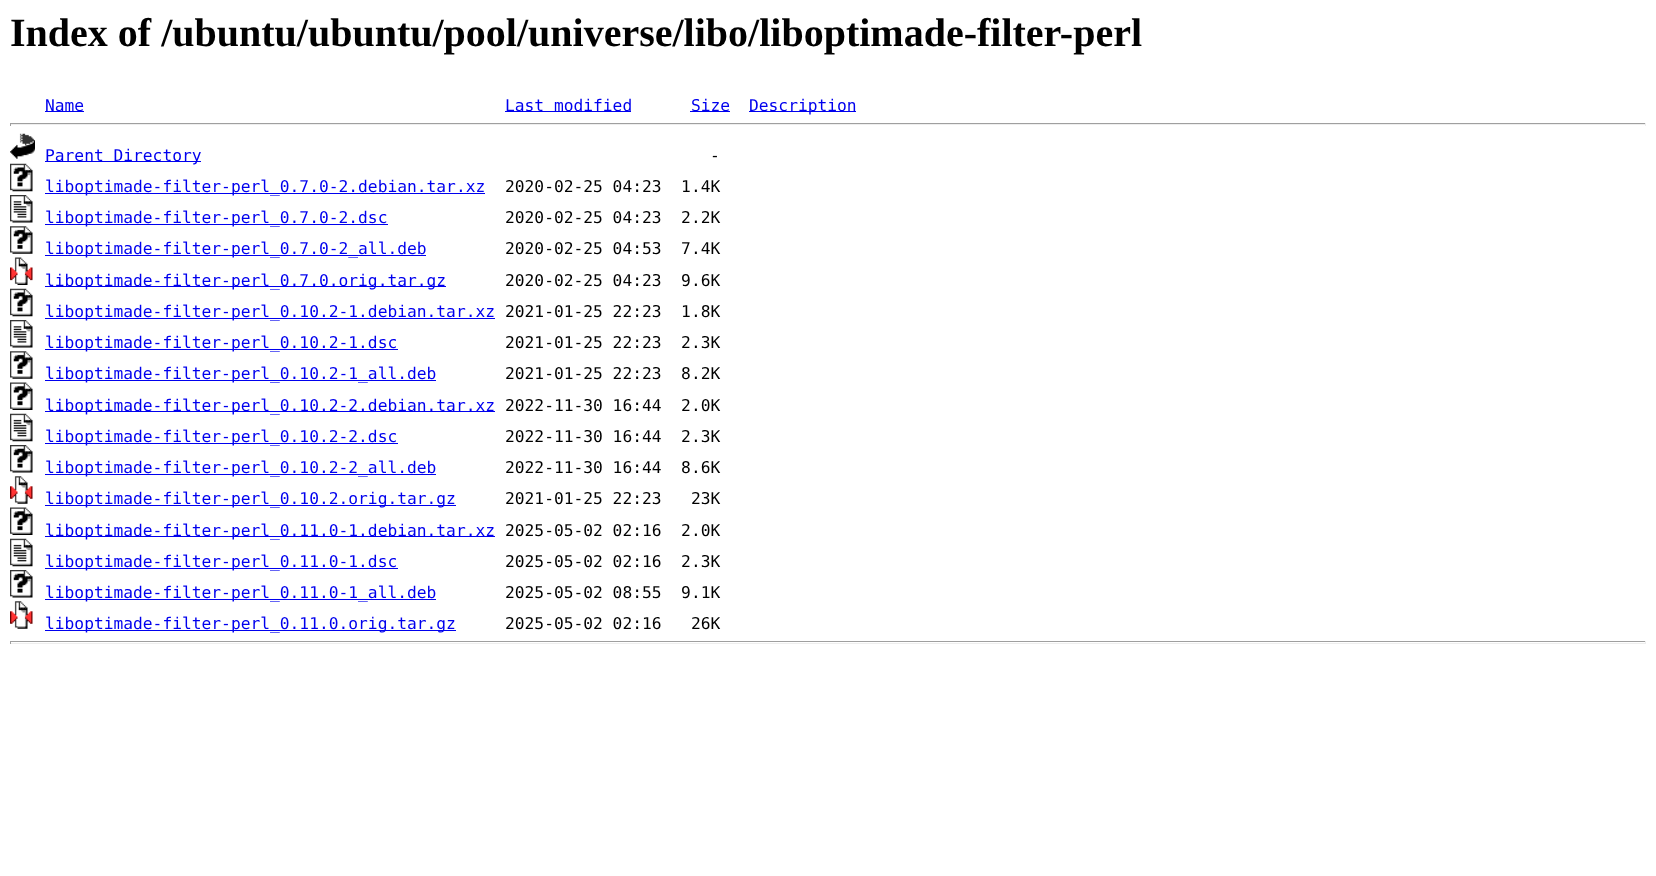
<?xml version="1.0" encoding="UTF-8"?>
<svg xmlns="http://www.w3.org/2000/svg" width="1656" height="876">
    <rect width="100%" height="100%" fill="#FFFFFF"/>
    <text x="10" y="46" font-family="Liberation Serif" font-size="40" font-weight="700" fill="#000000">Index of /ubuntu/ubuntu/pool/universe/libo/liboptimade-filter-perl</text>
    <rect x="45" y="111" width="39" height="1" fill="#0000EE"/>
    <text x="45" y="111" font-family="DejaVu Sans Mono" font-size="16.25" fill="#0000EE">Name</text>
    <rect x="505" y="111" width="126" height="1" fill="#0000EE"/>
    <text x="505" y="111" font-family="DejaVu Sans Mono" font-size="16.25" fill="#0000EE">Last modified</text>
    <rect x="690" y="111" width="40" height="1" fill="#0000EE"/>
    <text x="691" y="111" font-family="DejaVu Sans Mono" font-size="16.25" fill="#0000EE">Size</text>
    <rect x="749" y="111" width="107" height="1" fill="#0000EE"/>
    <text x="749" y="111" font-family="DejaVu Sans Mono" font-size="16.25" fill="#0000EE">Description</text>
    <rect x="10" y="123" width="1636" height="1" fill="#9F9F9F"/>
    <rect x="1645" y="123" width="1" height="3" fill="#EEEEEE"/>
    <rect x="10" y="124" width="1636" height="1" fill="#EEEEEE"/>
    <rect x="10" y="123" width="1" height="3" fill="#9F9F9F"/>
    <image x="10" y="133" width="25" height="26" href="img_01.png"/>
    <rect x="45" y="161" width="156" height="1" fill="#0000EE"/>
    <text x="45" y="161" font-family="DejaVu Sans Mono" font-size="16.25" fill="#0000EE">Parent Directory</text>
    <text x="710" y="161" font-family="DejaVu Sans Mono" font-size="16.25" fill="#000000">-</text>
    <image x="10" y="163" width="23" height="29" href="img_02.png"/>
    <rect x="45" y="193" width="440" height="1" fill="#0000EE"/>
    <text x="45" y="192" font-family="DejaVu Sans Mono" font-size="16.25" fill="#0000EE">liboptimade-filter-perl_0.7.0-2.debian.tar.xz</text>
    <text x="505" y="192" font-family="DejaVu Sans Mono" font-size="16.25" fill="#000000" xml:space="preserve">2020-02-25 04:23  1.4K</text>
    <image x="10" y="195" width="23" height="28" href="img_03.png"/>
    <rect x="45" y="224" width="343" height="1" fill="#0000EE"/>
    <text x="45" y="223" font-family="DejaVu Sans Mono" font-size="16.25" fill="#0000EE">liboptimade-filter-perl_0.7.0-2.dsc</text>
    <text x="505" y="223" font-family="DejaVu Sans Mono" font-size="16.25" fill="#000000" xml:space="preserve">2020-02-25 04:23  2.2K</text>
    <image x="10" y="226" width="23" height="28" href="img_04.png"/>
    <rect x="45" y="255" width="381" height="1" fill="#0000EE"/>
    <text x="45" y="254" font-family="DejaVu Sans Mono" font-size="16.25" fill="#0000EE">liboptimade-filter-perl_0.7.0-2_all.deb</text>
    <text x="505" y="254" font-family="DejaVu Sans Mono" font-size="16.25" fill="#000000" xml:space="preserve">2020-02-25 04:53  7.4K</text>
    <image x="10" y="257" width="23" height="28" href="img_05.png"/>
    <rect x="45" y="286" width="401" height="1" fill="#0000EE"/>
    <text x="45" y="286" font-family="DejaVu Sans Mono" font-size="16.25" fill="#0000EE">liboptimade-filter-perl_0.7.0.orig.tar.gz</text>
    <text x="505" y="286" font-family="DejaVu Sans Mono" font-size="16.25" fill="#000000" xml:space="preserve">2020-02-25 04:23  9.6K</text>
    <image x="10" y="288" width="23" height="29" href="img_06.png"/>
    <rect x="45" y="318" width="450" height="1" fill="#0000EE"/>
    <text x="45" y="317" font-family="DejaVu Sans Mono" font-size="16.25" fill="#0000EE">liboptimade-filter-perl_0.10.2-1.debian.tar.xz</text>
    <text x="505" y="317" font-family="DejaVu Sans Mono" font-size="16.25" fill="#000000" xml:space="preserve">2021-01-25 22:23  1.8K</text>
    <image x="10" y="320" width="23" height="28" href="img_03.png"/>
    <rect x="45" y="349" width="353" height="1" fill="#0000EE"/>
    <text x="45" y="348" font-family="DejaVu Sans Mono" font-size="16.25" fill="#0000EE">liboptimade-filter-perl_0.10.2-1.dsc</text>
    <text x="505" y="348" font-family="DejaVu Sans Mono" font-size="16.25" fill="#000000" xml:space="preserve">2021-01-25 22:23  2.3K</text>
    <image x="10" y="351" width="23" height="28" href="img_04.png"/>
    <rect x="45" y="380" width="391" height="1" fill="#0000EE"/>
    <text x="45" y="379" font-family="DejaVu Sans Mono" font-size="16.25" fill="#0000EE">liboptimade-filter-perl_0.10.2-1_all.deb</text>
    <text x="505" y="379" font-family="DejaVu Sans Mono" font-size="16.25" fill="#000000" xml:space="preserve">2021-01-25 22:23  8.2K</text>
    <image x="10" y="382" width="23" height="28" href="img_07.png"/>
    <rect x="45" y="411" width="450" height="1" fill="#0000EE"/>
    <text x="45" y="411" font-family="DejaVu Sans Mono" font-size="16.25" fill="#0000EE">liboptimade-filter-perl_0.10.2-2.debian.tar.xz</text>
    <text x="505" y="411" font-family="DejaVu Sans Mono" font-size="16.25" fill="#000000" xml:space="preserve">2022-11-30 16:44  2.0K</text>
    <image x="10" y="413" width="23" height="29" href="img_08.png"/>
    <rect x="45" y="443" width="353" height="1" fill="#0000EE"/>
    <text x="45" y="442" font-family="DejaVu Sans Mono" font-size="16.25" fill="#0000EE">liboptimade-filter-perl_0.10.2-2.dsc</text>
    <text x="505" y="442" font-family="DejaVu Sans Mono" font-size="16.25" fill="#000000" xml:space="preserve">2022-11-30 16:44  2.3K</text>
    <image x="10" y="445" width="23" height="28" href="img_09.png"/>
    <rect x="45" y="474" width="391" height="1" fill="#0000EE"/>
    <text x="45" y="473" font-family="DejaVu Sans Mono" font-size="16.25" fill="#0000EE">liboptimade-filter-perl_0.10.2-2_all.deb</text>
    <text x="505" y="473" font-family="DejaVu Sans Mono" font-size="16.25" fill="#000000" xml:space="preserve">2022-11-30 16:44  8.6K</text>
    <image x="10" y="476" width="23" height="28" href="img_10.png"/>
    <rect x="45" y="505" width="411" height="1" fill="#0000EE"/>
    <text x="45" y="504" font-family="DejaVu Sans Mono" font-size="16.25" fill="#0000EE">liboptimade-filter-perl_0.10.2.orig.tar.gz</text>
    <text x="505" y="504" font-family="DejaVu Sans Mono" font-size="16.25" fill="#000000" xml:space="preserve">2021-01-25 22:23   23K</text>
    <image x="10" y="507" width="23" height="28" href="img_07.png"/>
    <rect x="45" y="536" width="450" height="1" fill="#0000EE"/>
    <text x="45" y="536" font-family="DejaVu Sans Mono" font-size="16.25" fill="#0000EE">liboptimade-filter-perl_0.11.0-1.debian.tar.xz</text>
    <text x="505" y="536" font-family="DejaVu Sans Mono" font-size="16.25" fill="#000000" xml:space="preserve">2025-05-02 02:16  2.0K</text>
    <image x="10" y="538" width="23" height="29" href="img_08.png"/>
    <rect x="45" y="568" width="353" height="1" fill="#0000EE"/>
    <text x="45" y="567" font-family="DejaVu Sans Mono" font-size="16.25" fill="#0000EE">liboptimade-filter-perl_0.11.0-1.dsc</text>
    <text x="505" y="567" font-family="DejaVu Sans Mono" font-size="16.25" fill="#000000" xml:space="preserve">2025-05-02 02:16  2.3K</text>
    <image x="10" y="570" width="23" height="28" href="img_11.png"/>
    <rect x="45" y="599" width="391" height="1" fill="#0000EE"/>
    <text x="45" y="598" font-family="DejaVu Sans Mono" font-size="16.25" fill="#0000EE">liboptimade-filter-perl_0.11.0-1_all.deb</text>
    <text x="505" y="598" font-family="DejaVu Sans Mono" font-size="16.25" fill="#000000" xml:space="preserve">2025-05-02 08:55  9.1K</text>
    <image x="10" y="601" width="23" height="28" href="img_10.png"/>
    <rect x="45" y="630" width="411" height="1" fill="#0000EE"/>
    <text x="45" y="629" font-family="DejaVu Sans Mono" font-size="16.25" fill="#0000EE">liboptimade-filter-perl_0.11.0.orig.tar.gz</text>
    <text x="505" y="629" font-family="DejaVu Sans Mono" font-size="16.25" fill="#000000" xml:space="preserve">2025-05-02 02:16   26K</text>
    <rect x="10" y="641" width="1636" height="1" fill="#9F9F9F"/>
    <rect x="1645" y="641" width="1" height="3" fill="#EEEEEE"/>
    <rect x="10" y="643" width="1636" height="1" fill="#EEEEEE"/>
    <rect x="10" y="641" width="1" height="3" fill="#9F9F9F"/>
</svg>
